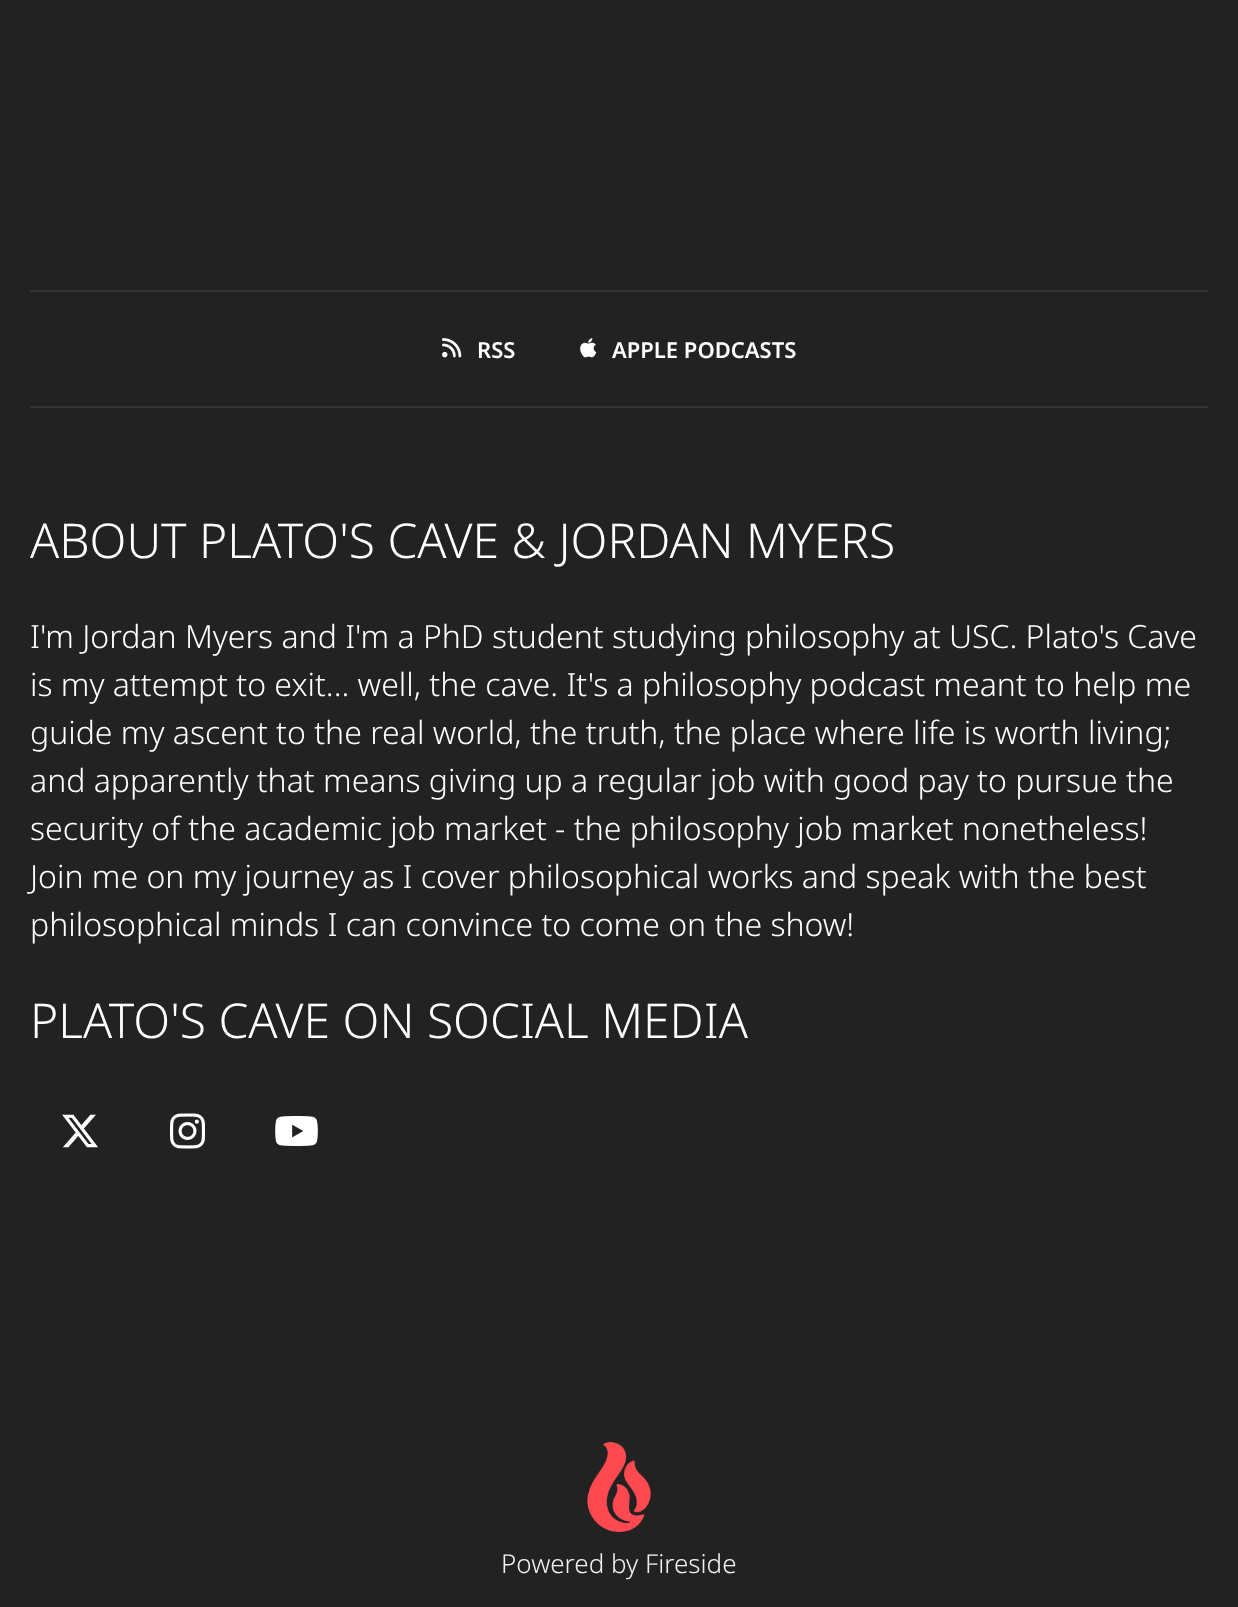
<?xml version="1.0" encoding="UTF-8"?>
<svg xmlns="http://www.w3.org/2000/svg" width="1238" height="1607">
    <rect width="100%" height="100%" fill="#222222"/>
    <rect x="30" y="290" width="1178" height="2" fill="#343434"/>
    <rect x="30" y="406" width="1178" height="2" fill="#343434"/>
    <image x="442" y="338" width="20" height="20" href="img_01.png"/>
    <text x="477" y="358" font-family="Noto Sans" font-size="22" font-weight="600" fill="#FFFFFF">RSS</text>
    <image x="580" y="338" width="17" height="20" href="img_02.png"/>
    <text x="612" y="358" font-family="Noto Sans" font-size="22" font-weight="600" fill="#FFFFFF">APPLE PODCASTS</text>
    <text x="30" y="558" font-family="Noto Sans" font-size="48" font-weight="300" fill="#FFFFFF">ABOUT PLATO'S CAVE &amp; JORDAN MYERS</text>
    <text font-family="Noto Sans" font-size="32" font-weight="300" fill="#FFFFFF">
        <tspan x="30" y="648">I'm Jordan Myers and I'm a PhD student studying philosophy at USC. Plato's Cave</tspan>
        <tspan x="30" y="696">is my attempt to exit... well, the cave. It's a philosophy podcast meant to help me</tspan>
        <tspan x="30" y="744">guide my ascent to the real world, the truth, the place where life is worth living;</tspan>
        <tspan x="30" y="792">and apparently that means giving up a regular job with good pay to pursue the</tspan>
        <tspan x="30" y="840">security of the academic job market - the philosophy job market nonetheless!</tspan>
        <tspan x="30" y="888">Join me on my journey as I cover philosophical works and speak with the best</tspan>
        <tspan x="30" y="936">philosophical minds I can convince to come on the show!</tspan>
    </text>
    <text x="30" y="1038" font-family="Noto Sans" font-size="48" font-weight="300" fill="#FFFFFF">PLATO'S CAVE ON SOCIAL MEDIA</text>
    <image x="62" y="1114" width="36" height="34" href="img_03.png"/>
    <image x="170" y="1113" width="35" height="36" href="img_04.png"/>
    <image x="275" y="1116" width="43" height="30" href="img_05.png"/>
    <image x="587" y="1442" width="64" height="90" href="img_06.png"/>
    <text x="501" y="1573" font-family="Noto Sans" font-size="26" font-weight="300" fill="#F2F2F2">Powered by Fireside</text>
</svg>
